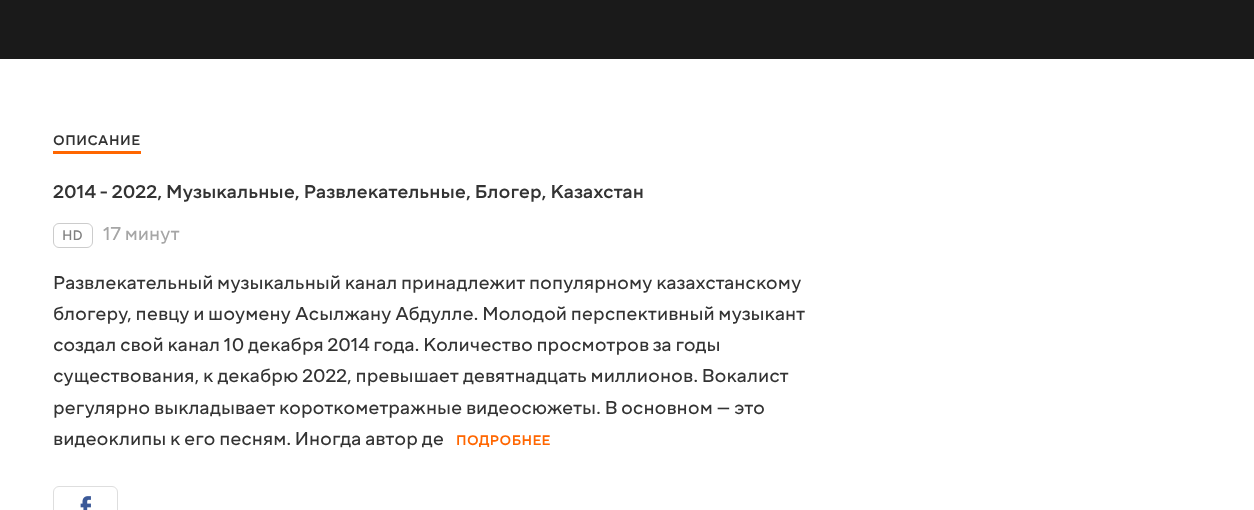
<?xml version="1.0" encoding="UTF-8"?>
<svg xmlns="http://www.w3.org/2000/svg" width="1254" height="510">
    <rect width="100%" height="100%" fill="#FFFFFF"/>
    <rect x="0" y="0" width="1254" height="59" fill="#1A1A1A"/>
    <text x="53" y="145" font-family="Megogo" font-size="15" font-weight="500" letter-spacing="0.5" fill="#333333">ОПИСАНИЕ</text>
    <rect x="53" y="151" width="88" height="3" fill="#FF6600"/>
    <text x="53" y="198" font-family="Megogo" font-size="20" font-weight="500" fill="#333333">2014 - 2022, Музыкальные, Развлекательные, Блогер, Казахстан</text>
    <rect x="53.5" y="223.5" width="39" height="24" rx="5.5" fill="none" stroke="#CCCCCC"/>
    <text x="62" y="240" font-family="Megogo" font-size="15" fill="#808080">HD</text>
    <text x="103" y="240" font-family="Megogo" font-size="20" fill="#A6A6A6">17 минут</text>
    <text font-family="Megogo" font-size="20" fill="#333333">
        <tspan x="53" y="289">Развлекательный музыкальный канал принадлежит популярному казахстанскому</tspan>
        <tspan x="53" y="320">блогеру, певцу и шоумену Асылжану Абдулле. Молодой перспективный музыкант</tspan>
        <tspan x="53" y="351">создал свой канал 10 декабря 2014 года. Количество просмотров за годы</tspan>
        <tspan x="53" y="382">существования, к декабрю 2022, превышает девятнадцать миллионов. Вокалист</tspan>
        <tspan x="53" y="414">регулярно выкладывает короткометражные видеосюжеты. В основном — это</tspan>
        <tspan x="53" y="445">видеоклипы к его песням. Иногда автор де</tspan>
    </text>
    <text x="456" y="445" font-family="Megogo" font-size="15" font-weight="500" letter-spacing="0.4" fill="#FF6600">ПОДРОБНЕЕ</text>
    <rect x="53.5" y="486.5" width="64" height="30" rx="5.5" fill="none" stroke="#DEDEDE"/>
    <image x="80" y="496" width="11" height="14" href="img_01.png"/>
</svg>
